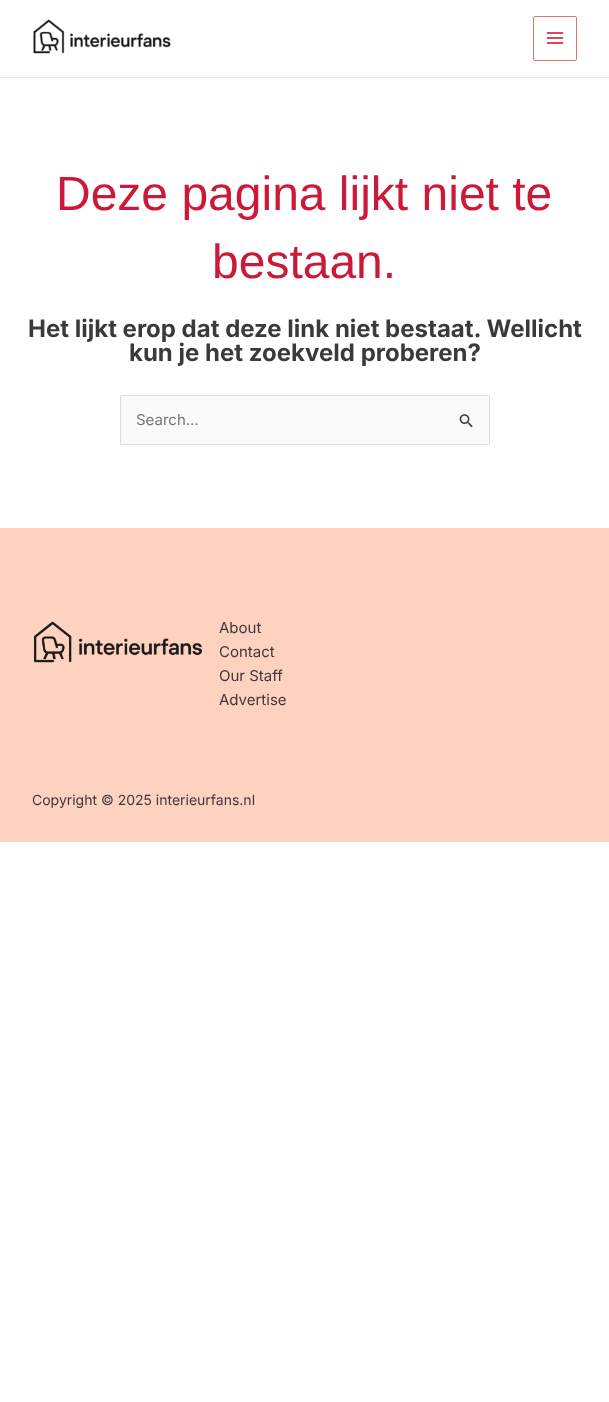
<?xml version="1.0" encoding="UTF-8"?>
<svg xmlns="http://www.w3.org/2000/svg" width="609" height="1402">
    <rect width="100%" height="100%" fill="#FFFFFF"/>
    <rect x="0" y="77" width="609" height="1" fill="#EAEAEA"/>
    <image x="33" y="19" width="138" height="35" href="img_01.png"/>
    <rect x="533.5" y="16.5" width="43" height="44" rx="1.5" fill="none" stroke="#D57A66"/>
    <image x="546" y="32" width="18" height="12" href="img_02.png"/>
    <text x="56" y="210" font-family="Liberation Sans" font-size="48" fill="#CC1939">Deze pagina lijkt niet te</text>
    <text x="212" y="278" font-family="Liberation Sans" font-size="48" fill="#CC1939">bestaan.</text>
    <text x="28" y="337" font-family="Inter" font-size="24" font-weight="700" fill="#3A3A3A">Het lijkt erop dat deze link niet bestaat. Wellicht</text>
    <text x="129" y="361" font-family="Inter" font-size="24" font-weight="700" fill="#3A3A3A">kun je het zoekveld proberen?</text>
    <rect x="120.5" y="395.5" width="369" height="49" rx="1.5" fill="#FAFAFA" stroke="#DDDDDD"/>
    <text x="136" y="425" font-family="Inter" font-size="15" fill="#757575">Search...</text>
    <image x="459" y="414" width="14" height="14" href="img_03.png"/>
    <rect x="0" y="528" width="609" height="239" fill="#FFD1BF"/>
    <image x="33" y="621" width="170" height="42" href="img_04.png"/>
    <text font-family="Inter" font-size="15" fill="#3A3A3A">
        <tspan x="219" y="633">About</tspan>
        <tspan x="219" y="657">Contact</tspan>
        <tspan x="219" y="681">Our Staff</tspan>
        <tspan x="219" y="705">Advertise</tspan>
    </text>
    <rect x="0" y="767" width="609" height="75" fill="#FFD1BF"/>
    <text x="32" y="805" font-family="Inter" font-size="14" fill="#3A3A3A">Copyright © 2025 interieurfans.nl</text>
</svg>
